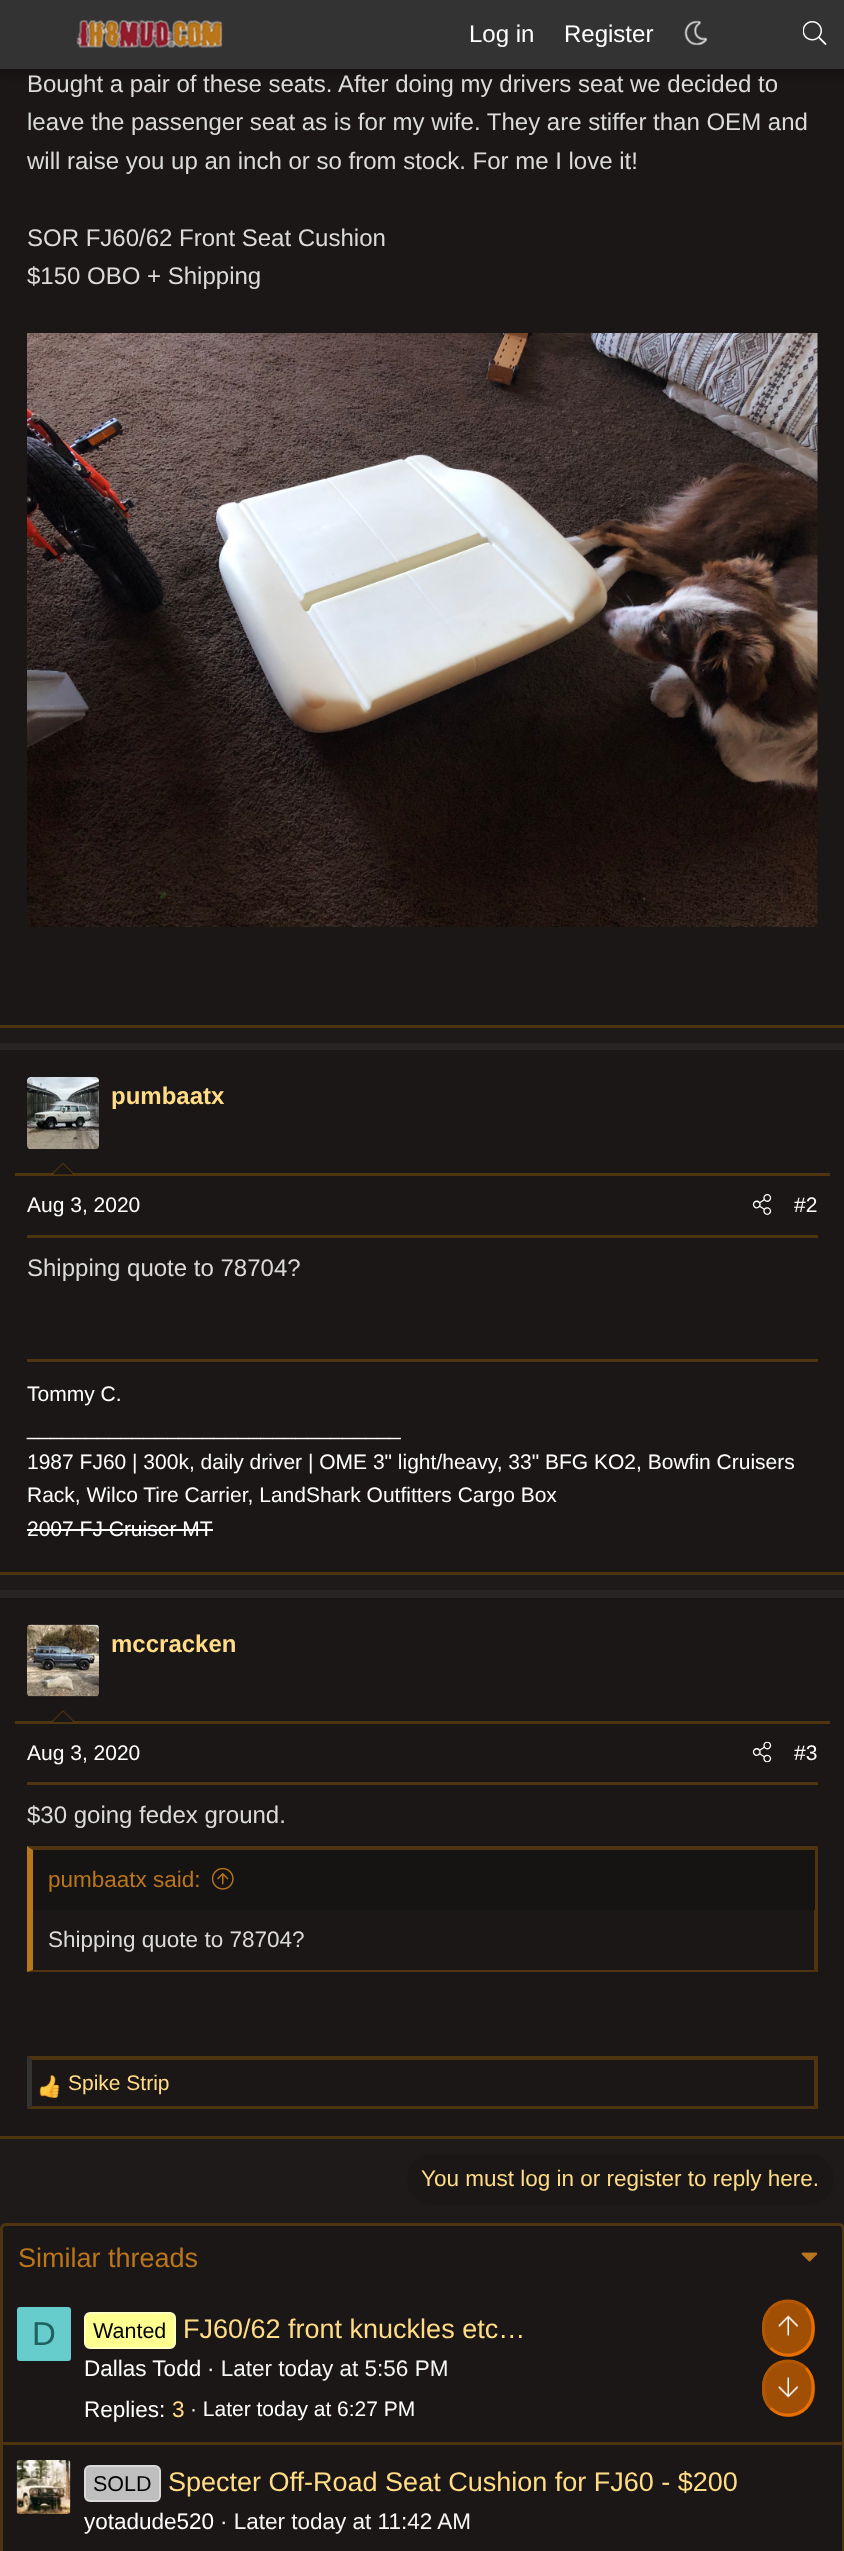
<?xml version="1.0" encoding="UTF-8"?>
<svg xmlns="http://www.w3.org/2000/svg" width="844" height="2551">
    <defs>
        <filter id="blur1" x="-50%" y="-200%" width="200%" height="500%"><feGaussianBlur stdDeviation="6"/></filter>
    </defs>
    <rect width="100%" height="100%" fill="#1F1A1A"/>
    <rect x="0" y="69" width="844" height="956" fill="#1C1717"/>
    <rect x="-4" y="-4" width="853" height="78" fill="#000000" fill-opacity="0.3" filter="url(#blur1)"/>
    <rect x="0" y="0" width="844" height="69" fill="#333333"/>
    <image x="76" y="20" width="147" height="28" href="img_01.png"/>
    <text x="469" y="42" font-family="Liberation Sans" font-size="24" fill="#FFFFFF">Log in</text>
    <text x="564" y="42" font-family="Liberation Sans" font-size="24" fill="#FFFFFF">Register</text>
    <image x="684" y="20" width="24" height="26" href="img_02.png"/>
    <image x="803" y="21" width="24" height="24" href="img_03.png"/>
    <rect x="0" y="1025" width="844" height="3" fill="#4E3510"/>
    <text font-family="Liberation Sans" font-size="24" fill="#DBDBDB">
        <tspan x="27" y="92">Bought a pair of these seats. After doing my drivers seat we decided to</tspan>
        <tspan x="27" y="130">leave the passenger seat as is for my wife. They are stiffer than OEM and</tspan>
        <tspan x="27" y="169">will raise you up an inch or so from stock. For me I love it!</tspan>
    </text>
    <text font-family="Liberation Sans" font-size="24" fill="#DBDBDB">
        <tspan x="27" y="246">SOR FJ60/62 Front Seat Cushion</tspan>
        <tspan x="27" y="284">$150 OBO + Shipping</tspan>
    </text>
    <image x="27" y="333" width="791" height="594" href="img_04.png"/>
    <rect x="0" y="1050" width="844" height="522" fill="#1C1717"/>
    <rect x="0" y="1572" width="844" height="3" fill="#4E3510"/>
    <rect x="0" y="1043" width="844" height="7" fill="#292424"/>
    <rect x="15" y="1173" width="815" height="3" fill="#4E3510"/>
    <image x="27" y="1077" width="72" height="72" href="img_05.png"/>
    <text x="111" y="1104" font-family="Liberation Sans" font-size="24" font-weight="700" fill="#FFDC85">pumbaatx</text>
    <path d="M 75 1174.5 H 51 L 63 1162.5 Z" fill="#BD7800" fill-opacity="0.31"/>
    <path d="M 73.5 1174.5 H 52.5 L 63 1164 Z" fill="#1C1717"/>
    <rect x="27" y="1235" width="791" height="3" fill="#4E3510"/>
    <text x="27" y="1212" font-family="Liberation Sans" font-size="21" fill="#FFFFFF">Aug 3, 2020</text>
    <image x="752" y="1194" width="20" height="21" href="img_06.png"/>
    <text x="794" y="1212" font-family="Liberation Sans" font-size="21" fill="#FFFFFF">#2</text>
    <text x="27" y="1276" font-family="Liberation Sans" font-size="24" fill="#DBDBDB">Shipping quote to 78704?</text>
    <rect x="27" y="1359" width="791" height="3" fill="#4E3510"/>
    <text font-family="Liberation Sans" font-size="21" fill="#FFFFFF">
        <tspan x="27" y="1401">Tommy C.</tspan>
        <tspan x="27" y="1435">________________________________</tspan>
        <tspan x="27" y="1469">1987 FJ60 | 300k, daily driver | OME 3" light/heavy, 33" BFG KO2, Bowfin Cruisers</tspan>
        <tspan x="27" y="1502">Rack, Wilco Tire Carrier, LandShark Outfitters Cargo Box</tspan>
        <tspan x="27" y="1536">2007 FJ Cruiser MT</tspan>
    </text>
    <rect x="27" y="1529" width="186" height="2" fill="#FFFFFF"/>
    <rect x="0" y="1598" width="844" height="538" fill="#1C1717"/>
    <rect x="0" y="2136" width="844" height="3" fill="#4E3510"/>
    <rect x="0" y="1590" width="844" height="8" fill="#292424"/>
    <rect x="15" y="1721" width="815" height="3" fill="#4E3510"/>
    <image x="27" y="1624" width="72" height="73" href="img_07.png"/>
    <text x="111" y="1652" font-family="Liberation Sans" font-size="24" font-weight="700" fill="#FFDC85">mccracken</text>
    <path d="M 75 1722 H 51 L 63 1710 Z" fill="#BD7800" fill-opacity="0.31"/>
    <path d="M 73.5 1722 H 52.5 L 63 1711.5 Z" fill="#1C1717"/>
    <rect x="27" y="1782" width="791" height="3" fill="#4E3510"/>
    <text x="27" y="1760" font-family="Liberation Sans" font-size="21" fill="#FFFFFF">Aug 3, 2020</text>
    <image x="752" y="1741" width="20" height="22" href="img_08.png"/>
    <text x="794" y="1760" font-family="Liberation Sans" font-size="21" fill="#FFFFFF">#3</text>
    <text x="27" y="1823" font-family="Liberation Sans" font-size="24" fill="#DBDBDB">$30 going fedex ground.</text>
    <path d="M 27 1846 H 818 L 814 1850 H 33 Z" fill="#4E3510"/>
    <path d="M 818 1846 V 1972 L 814 1970 V 1850 Z" fill="#BD7800" fill-opacity="0.31"/>
    <path d="M 818 1972 H 27 L 33 1970 H 814 Z" fill="#BD7800" fill-opacity="0.31"/>
    <path d="M 27 1972 V 1846 L 33 1850 V 1970 Z" fill="#BA761C"/>
    <rect x="33" y="1850" width="782" height="60" fill="#161313"/>
    <text x="48" y="1887" font-family="Liberation Sans" font-size="22.5" fill="#BA761C">pumbaatx said:</text>
    <image x="212" y="1868" width="22" height="22" href="img_09.png"/>
    <text x="48" y="1947" font-family="Liberation Sans" font-size="22.5" fill="#DBDBDB">Shipping quote to 78704?</text>
    <path d="M 27 2056 H 818 L 814 2060 H 32 Z" fill="#4E3510"/>
    <path d="M 818 2056 V 2109 L 814 2106 V 2060 Z" fill="#BD7800" fill-opacity="0.31"/>
    <path d="M 818 2109 H 27 L 32 2106 H 814 Z" fill="#BD7800" fill-opacity="0.31"/>
    <path d="M 27 2109 V 2056 L 32 2060 V 2106 Z" fill="#333333"/>
    <image x="39" y="2075" width="21" height="23" href="img_10.png"/>
    <text x="68" y="2090" font-family="Liberation Sans" font-size="21" fill="#FFDC85">Spike Strip</text>
    <rect x="405.5" y="2152.5" width="430" height="54" rx="27" fill="#1C1717" stroke="#1F1A1A" stroke-width="3"/>
    <text x="421" y="2186" font-family="Liberation Sans" font-size="22.5" fill="#FFDC85">You must log in or register to reply here.</text>
    <rect x="1.5" y="2224.5" width="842" height="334" rx="4.5" fill="#1C1717" stroke="#4E3510" stroke-width="3"/>
    <text x="18" y="2267" font-family="Liberation Sans" font-size="27" fill="#BA761C">Similar threads</text>
    <image x="801" y="2252" width="17" height="10" href="img_11.png"/>
    <rect x="17" y="2307" width="54" height="54" rx="3" fill="#66CCCC"/>
    <text x="32" y="2345" font-family="Liberation Sans" font-size="33" fill="#206060">D</text>
    <rect x="85" y="2313" width="90" height="35" rx="5" fill="#FFFF8F" stroke="#FFFFC2" stroke-width="2"/>
    <text x="93" y="2338" font-family="Liberation Sans" font-size="21.5" fill="#000000">Wanted</text>
    <text x="183" y="2338" font-family="Liberation Sans" font-size="27" fill="#FFDC85">FJ60/62 front knuckles etc…</text>
    <text x="84" y="2376" font-family="Liberation Sans" font-size="22.5" fill="#FFFFFF">Dallas Todd</text>
    <text x="207" y="2376" font-family="Liberation Sans" font-size="22.5" fill="#F5F5F5">· Later today at 5:56 PM</text>
    <text x="84" y="2417" font-family="Liberation Sans" font-size="22.5" fill="#FFFFFF">Replies:</text>
    <text x="172" y="2417" font-family="Liberation Sans" font-size="22.5" fill="#FFDC85">3</text>
    <text x="190" y="2416" font-family="Liberation Sans" font-size="21" fill="#FFFFFF">· Later today at 6:27 PM</text>
    <rect x="3" y="2442" width="839" height="3" fill="#4E3510"/>
    <image x="16" y="2460" width="55" height="54" href="img_12.png"/>
    <rect x="85" y="2466" width="75" height="35" rx="5" fill="#BFBFBF" stroke="#D9D9D9" stroke-width="2"/>
    <text x="93" y="2491" font-family="Liberation Sans" font-size="21.5" fill="#000000">SOLD</text>
    <text x="168" y="2491" font-family="Liberation Sans" font-size="27" fill="#FFDC85">Specter Off-Road Seat Cushion for FJ60 - $200</text>
    <text x="84" y="2529" font-family="Liberation Sans" font-size="22.5" fill="#FFFFFF">yotadude520</text>
    <text x="220" y="2529" font-family="Liberation Sans" font-size="22.5" fill="#F5F5F5">· Later today at 11:42 AM</text>
    <rect x="762" y="2300" width="53" height="57" rx="26.5" fill="#CC6300" fill-opacity="0.75"/>
    <path d="M 806 2308 C 811 2313.5 813 2320 813 2327 C 813 2332.5 812.5 2337.5 810 2342 C 802.5 2356.5 782.5 2359.5 770.5 2348" fill="none" stroke="#E66F00" stroke-width="3"/>
    <path d="M 770.5 2348 C 765.5 2342.5 763.5 2336 763.5 2329 C 763.5 2323.5 764 2318.5 766.5 2314 C 774 2299.5 794 2296.5 806 2308" fill="none" stroke="#B35600" stroke-width="3"/>
    <image x="778" y="2315" width="20" height="21" href="img_13.png"/>
    <rect x="762" y="2360" width="53" height="57" rx="26.5" fill="#CC6300" fill-opacity="0.75"/>
    <path d="M 806 2368 C 811 2373.5 813 2380 813 2387 C 813 2392.5 812.5 2397.5 810 2402 C 802.5 2416.5 782.5 2419.5 770.5 2408" fill="none" stroke="#E66F00" stroke-width="3"/>
    <path d="M 770.5 2408 C 765.5 2402.5 763.5 2396 763.5 2389 C 763.5 2383.5 764 2378.5 766.5 2374 C 774 2359.5 794 2356.5 806 2368" fill="none" stroke="#B35600" stroke-width="3"/>
    <image x="778" y="2377" width="20" height="21" href="img_14.png"/>
</svg>
